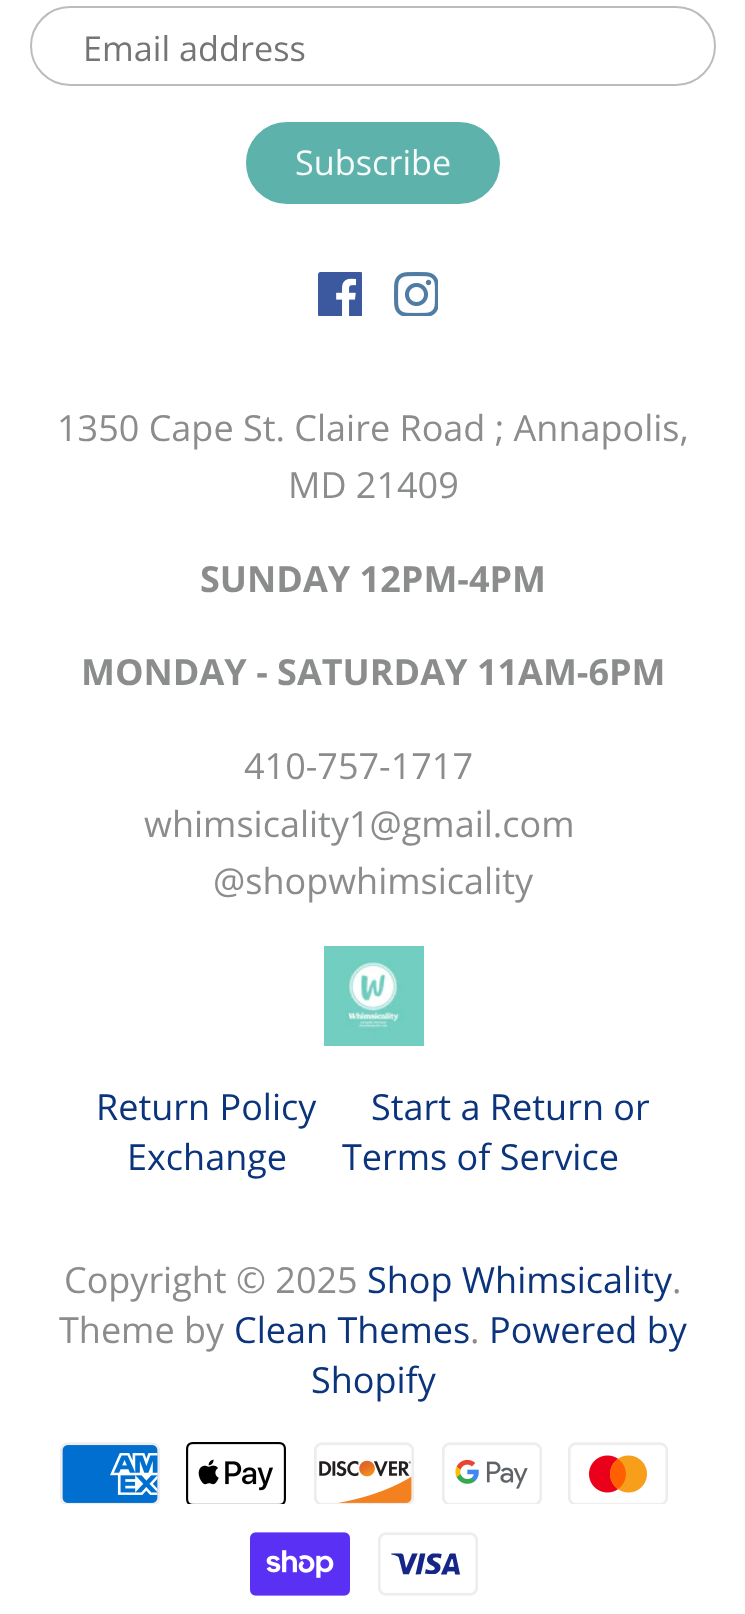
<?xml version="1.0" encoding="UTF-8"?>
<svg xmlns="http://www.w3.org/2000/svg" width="745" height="1614">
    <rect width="100%" height="100%" fill="#FFFFFF"/>
    <rect x="31" y="7" width="684" height="78" rx="39" fill="none" stroke="#BCBCBC" stroke-width="2"/>
    <text x="83" y="61" font-family="Open Sans" font-size="34.25" fill="#757575">Email address</text>
    <rect x="247" y="123" width="252" height="80" rx="40" fill="#5DB2AB" stroke="#5DB2AB" stroke-width="2"/>
    <text x="295" y="175" font-family="Open Sans" font-size="34.25" fill="#F7FAF9">Subscribe</text>
    <image x="318" y="272" width="44" height="44" href="img_01.png"/>
    <image x="394" y="272" width="44" height="44" href="img_02.png"/>
    <text x="57" y="441" font-family="Open Sans" font-size="36" fill="#8B8C8C">1350 Cape St. Claire Road ; Annapolis,</text>
    <text x="288" y="498" font-family="Open Sans" font-size="36" fill="#8B8C8C">MD 21409</text>
    <text x="200" y="592" font-family="Open Sans" font-size="36" font-weight="700" fill="#8B8C8C">SUNDAY 12PM-4PM</text>
    <text x="81" y="685" font-family="Open Sans" font-size="36" font-weight="700" fill="#8B8C8C">MONDAY - SATURDAY 11AM-6PM</text>
    <text x="244" y="779" font-family="Open Sans" font-size="36" fill="#8B8C8C">410-757-1717</text>
    <text x="144" y="837" font-family="Open Sans" font-size="36" fill="#8B8C8C">whimsicality1@gmail.com</text>
    <text x="213" y="894" font-family="Open Sans" font-size="36" fill="#8B8C8C">@shopwhimsicality</text>
    <image x="324" y="946" width="100" height="100" href="img_03.png"/>
    <text x="96" y="1120" font-family="Open Sans" font-size="36" fill="#0B347D">Return Policy</text>
    <text x="371" y="1120" font-family="Open Sans" font-size="36" fill="#0B347D">Start a Return or</text>
    <text x="127" y="1170" font-family="Open Sans" font-size="36" fill="#0B347D">Exchange</text>
    <text x="342" y="1170" font-family="Open Sans" font-size="36" fill="#0B347D">Terms of Service</text>
    <text x="64" y="1293" font-family="Open Sans" font-size="36" fill="#8B8C8C">Copyright © 2025</text>
    <text x="367" y="1293" font-family="Open Sans" font-size="36" fill="#0B347D">Shop Whimsicality</text>
    <text x="672" y="1293" font-family="Open Sans" font-size="36" fill="#8B8C8C">.</text>
    <text x="59" y="1343" font-family="Open Sans" font-size="36" fill="#8B8C8C">Theme by</text>
    <text x="234" y="1343" font-family="Open Sans" font-size="36" fill="#0B347D">Clean Themes</text>
    <text x="470" y="1343" font-family="Open Sans" font-size="36" fill="#8B8C8C">.</text>
    <text x="489" y="1343" font-family="Open Sans" font-size="36" fill="#0B347D">Powered by</text>
    <text x="311" y="1393" font-family="Open Sans" font-size="36" fill="#0B347D">Shopify</text>
    <image x="60" y="1442" width="100" height="62" href="img_04.png"/>
    <image x="186" y="1442" width="100" height="62" href="img_05.png"/>
    <image x="314" y="1442" width="100" height="62" href="img_06.png"/>
    <image x="442" y="1442" width="100" height="62" href="img_07.png"/>
    <image x="568" y="1442" width="100" height="62" href="img_08.png"/>
    <image x="250" y="1532" width="100" height="64" href="img_09.png"/>
    <image x="378" y="1532" width="100" height="64" href="img_10.png"/>
</svg>
